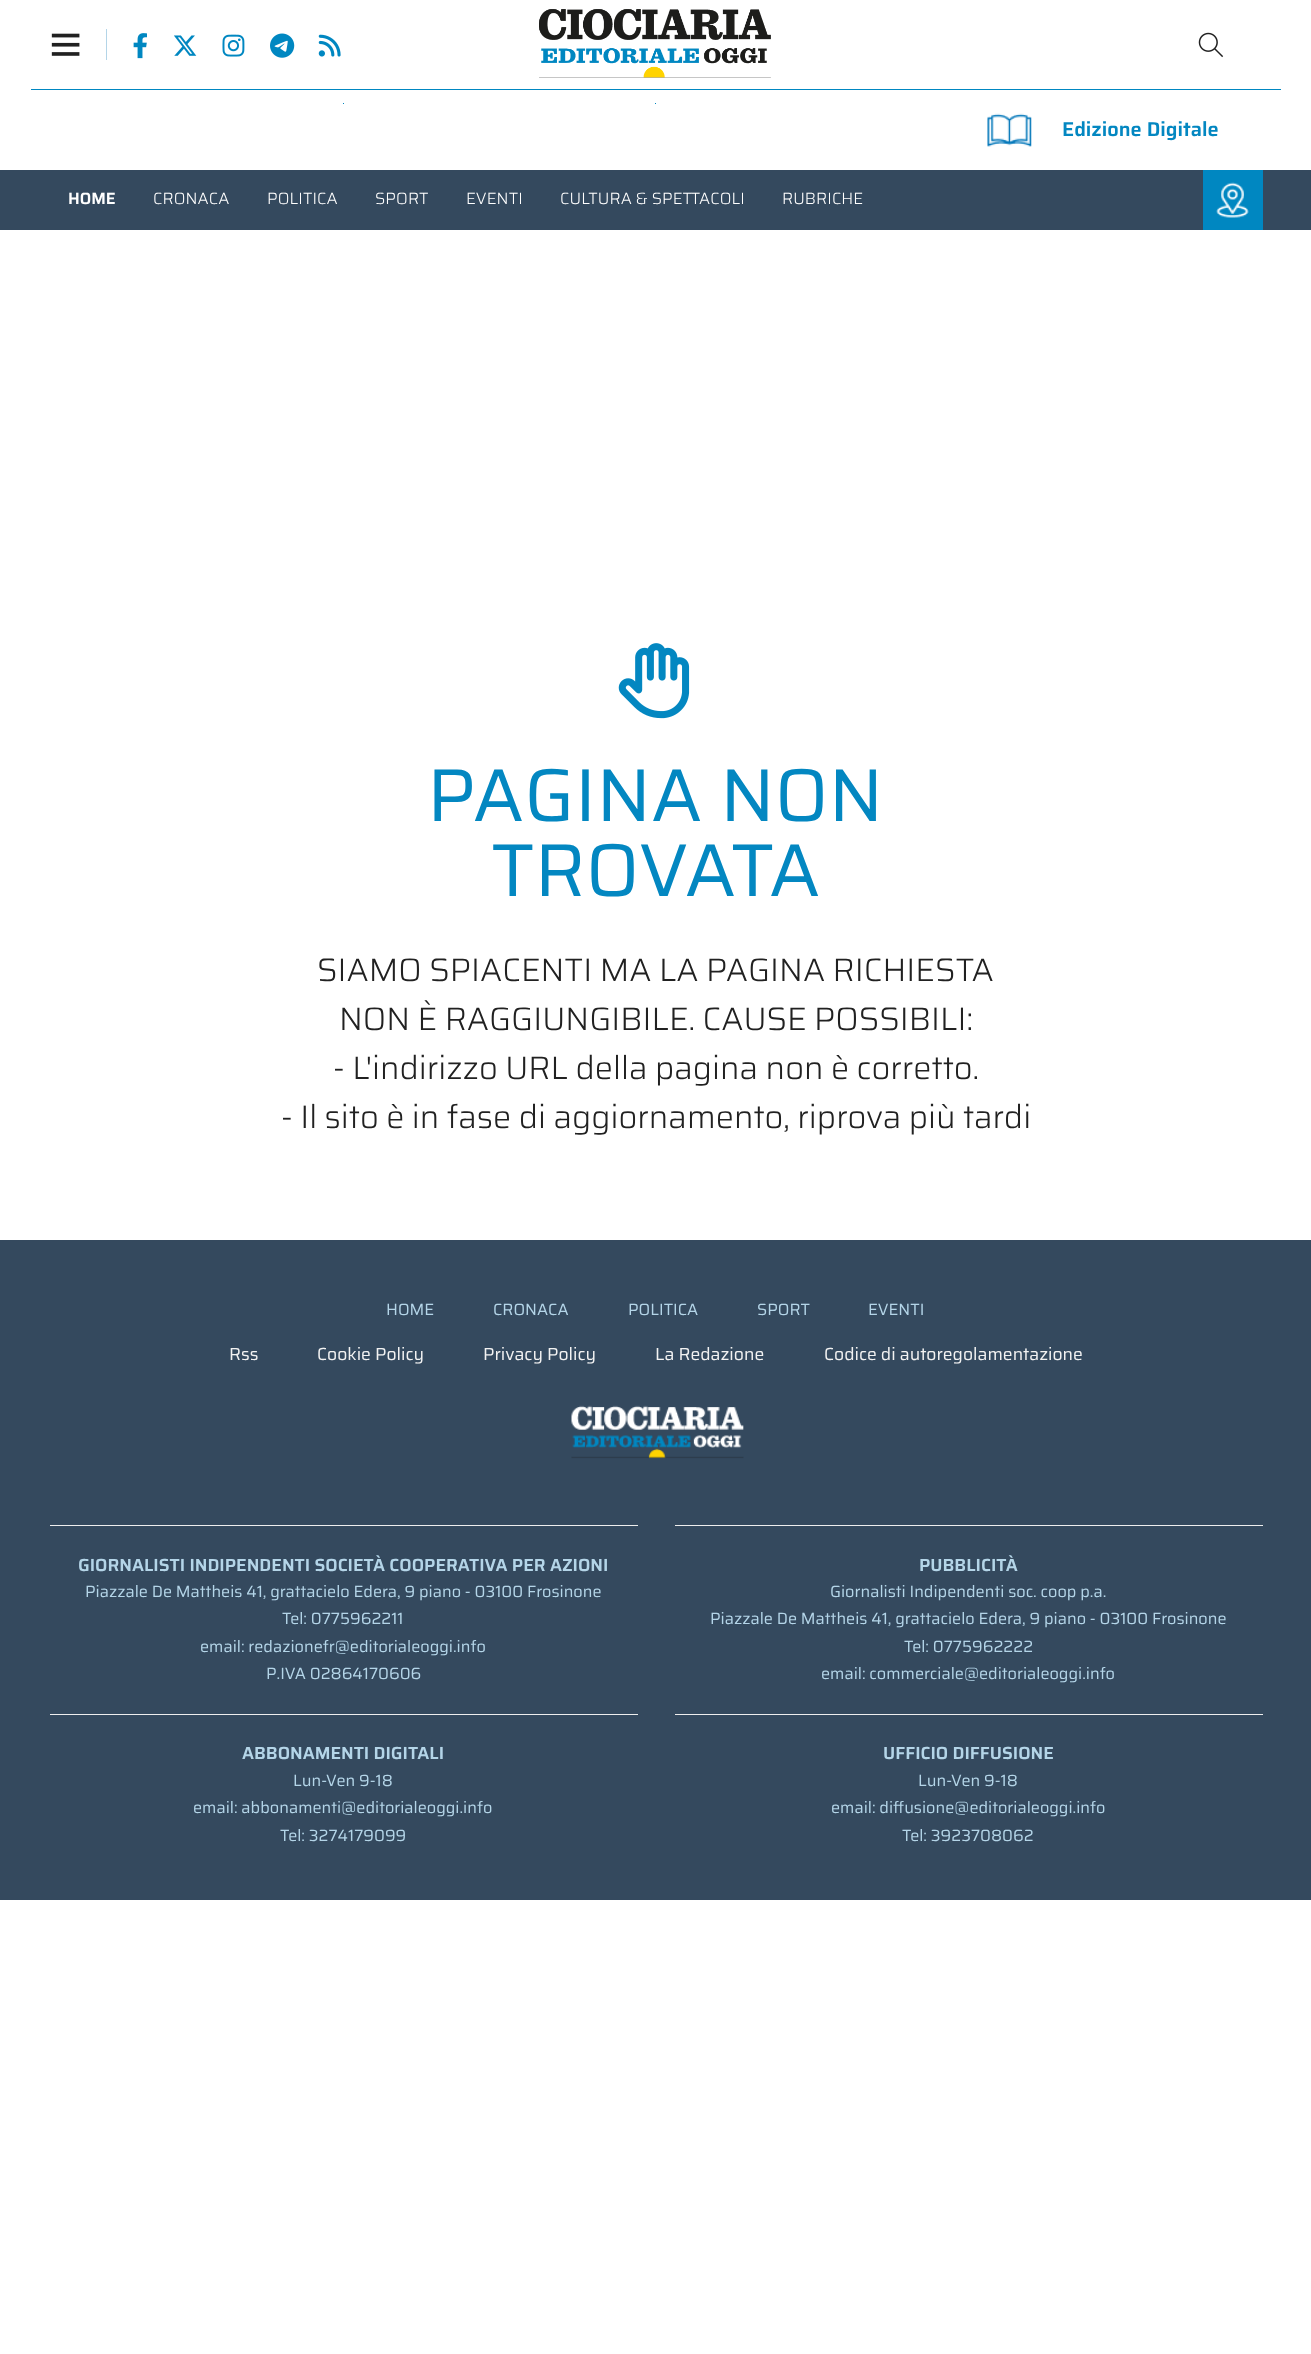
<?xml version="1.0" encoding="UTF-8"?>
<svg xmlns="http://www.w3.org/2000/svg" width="1311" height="2354">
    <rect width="100%" height="100%" fill="#FFFFFF"/>
    <rect x="31" y="89" width="1250" height="1" fill="#0087C1"/>
    <rect x="106" y="29" width="1" height="31" fill="#B4D5E8"/>
    <image x="51" y="33" width="29" height="23" href="img_01.png"/>
    <image x="133" y="33" width="14" height="26" href="img_02.png"/>
    <image x="174" y="35" width="23" height="21" href="img_03.png"/>
    <image x="222" y="34" width="23" height="23" href="img_04.png"/>
    <image x="270" y="33" width="25" height="25" href="img_05.png"/>
    <image x="318" y="34" width="23" height="23" href="img_06.png"/>
    <image x="539" y="9" width="232" height="69" href="img_07.png"/>
    <image x="1198" y="32" width="26" height="26" href="img_08.png"/>
    <rect x="343" y="103" width="1" height="1" fill="#0087C1"/>
    <rect x="655" y="103" width="1" height="1" fill="#0087C1"/>
    <image x="987" y="113" width="45" height="34" href="img_09.png"/>
    <text x="1062" y="136" font-family="Saira" font-size="20" font-weight="600" fill="#0387C1">Edizione Digitale</text>
    <rect x="0" y="170" width="1311" height="60" fill="#34495E"/>
    <text x="68" y="204" font-family="Saira" font-size="16.25" font-weight="600" fill="#FFFFFF">HOME</text>
    <text x="153" y="204" font-family="Saira" font-size="16.25" font-weight="300" letter-spacing="0.1" fill="#FFFFFF">CRONACA</text>
    <text x="267" y="204" font-family="Saira" font-size="16.25" font-weight="300" letter-spacing="0.1" fill="#FFFFFF">POLITICA</text>
    <text x="375" y="204" font-family="Saira" font-size="16.25" font-weight="300" letter-spacing="0.1" fill="#FFFFFF">SPORT</text>
    <text x="466" y="204" font-family="Saira" font-size="16.25" font-weight="300" letter-spacing="0.1" fill="#FFFFFF">EVENTI</text>
    <text x="560" y="204" font-family="Saira" font-size="16.25" font-weight="300" letter-spacing="0.1" fill="#FFFFFF">CULTURA &amp; SPETTACOLI</text>
    <text x="782" y="204" font-family="Saira" font-size="16.25" font-weight="300" letter-spacing="0.1" fill="#FFFFFF">RUBRICHE</text>
    <rect x="1203" y="170" width="60" height="60" fill="#0087C1"/>
    <image x="1216" y="182" width="33" height="36" href="img_10.png"/>
    <image x="618" y="643" width="72" height="76" href="img_11.png"/>
    <text x="427" y="821" font-family="Saira" font-size="75" fill="#0387C1">PAGINA NON</text>
    <text x="491" y="896" font-family="Saira" font-size="75" fill="#0387C1">TROVATA</text>
    <text x="317" y="981" font-family="Saira" font-size="32.5" font-weight="300" fill="#212121">SIAMO SPIACENTI MA LA PAGINA RICHIESTA</text>
    <text x="339" y="1030" font-family="Saira" font-size="32.5" font-weight="300" fill="#212121">NON È RAGGIUNGIBILE. CAUSE POSSIBILI:</text>
    <text x="333" y="1079" font-family="Saira" font-size="32.5" font-weight="300" fill="#212121">- L'indirizzo URL della pagina non è corretto.</text>
    <text x="281" y="1128" font-family="Saira" font-size="32.5" font-weight="300" fill="#212121">- Il sito è in fase di aggiornamento, riprova più tardi</text>
    <rect x="0" y="1240" width="1311" height="660" fill="#34495E"/>
    <text x="386" y="1315" font-family="Saira" font-size="16.25" fill="#B4D5E8">HOME</text>
    <text x="493" y="1315" font-family="Saira" font-size="16.25" fill="#B4D5E8">CRONACA</text>
    <text x="628" y="1315" font-family="Saira" font-size="16.25" fill="#B4D5E8">POLITICA</text>
    <text x="757" y="1315" font-family="Saira" font-size="16.25" fill="#B4D5E8">SPORT</text>
    <text x="868" y="1315" font-family="Saira" font-size="16.25" fill="#B4D5E8">EVENTI</text>
    <text x="229" y="1360" font-family="Saira" font-size="17.5" fill="#F2F2F2">Rss</text>
    <text x="317" y="1360" font-family="Saira" font-size="17.5" fill="#F2F2F2">Cookie Policy</text>
    <text x="483" y="1360" font-family="Saira" font-size="17.5" fill="#F2F2F2">Privacy Policy</text>
    <text x="655" y="1360" font-family="Saira" font-size="17.5" fill="#F2F2F2">La Redazione</text>
    <text x="824" y="1360" font-family="Saira" font-size="17.5" fill="#F2F2F2">Codice di autoregolamentazione</text>
    <image x="571" y="1405" width="173" height="54" href="img_12.png"/>
    <rect x="50" y="1525" width="588" height="1" fill="#EEEEEE"/>
    <text x="78" y="1571" font-family="Saira" font-size="17.5" font-weight="600" fill="#B4D5E8">GIORNALISTI INDIPENDENTI SOCIETÀ COOPERATIVA PER AZIONI</text>
    <text x="85" y="1597" font-family="Saira" font-size="16.25" fill="#B4D5E8">Piazzale De Mattheis 41, grattacielo Edera, 9 piano - 03100 Frosinone</text>
    <text x="282" y="1624" font-family="Saira" font-size="16.25" fill="#B4D5E8">Tel: 0775962211</text>
    <text x="200" y="1652" font-family="Saira" font-size="16.25" fill="#B4D5E8">email: redazionefr@editorialeoggi.info</text>
    <text x="266" y="1679" font-family="Saira" font-size="16.25" fill="#B4D5E8">P.IVA 02864170606</text>
    <rect x="50" y="1714" width="588" height="1" fill="#EEEEEE"/>
    <text x="242" y="1759" font-family="Saira" font-size="17.5" font-weight="600" fill="#B4D5E8">ABBONAMENTI DIGITALI</text>
    <text x="293" y="1786" font-family="Saira" font-size="16.25" fill="#B4D5E8">Lun-Ven 9-18</text>
    <text x="193" y="1813" font-family="Saira" font-size="16.25" fill="#B4D5E8">email: abbonamenti@editorialeoggi.info</text>
    <text x="280" y="1841" font-family="Saira" font-size="16.25" fill="#B4D5E8">Tel: 3274179099</text>
    <rect x="675" y="1525" width="588" height="1" fill="#EEEEEE"/>
    <text x="919" y="1571" font-family="Saira" font-size="17.5" font-weight="600" fill="#B4D5E8">PUBBLICITÀ</text>
    <text x="830" y="1597" font-family="Saira" font-size="16.25" fill="#B4D5E8">Giornalisti Indipendenti soc. coop p.a.</text>
    <text x="710" y="1624" font-family="Saira" font-size="16.25" fill="#B4D5E8">Piazzale De Mattheis 41, grattacielo Edera, 9 piano - 03100 Frosinone</text>
    <text x="904" y="1652" font-family="Saira" font-size="16.25" fill="#B4D5E8">Tel: 0775962222</text>
    <text x="821" y="1679" font-family="Saira" font-size="16.25" fill="#B4D5E8">email: commerciale@editorialeoggi.info</text>
    <rect x="675" y="1714" width="588" height="1" fill="#EEEEEE"/>
    <text x="883" y="1759" font-family="Saira" font-size="17.5" font-weight="600" fill="#B4D5E8">UFFICIO DIFFUSIONE</text>
    <text x="918" y="1786" font-family="Saira" font-size="16.25" fill="#B4D5E8">Lun-Ven 9-18</text>
    <text x="831" y="1813" font-family="Saira" font-size="16.25" fill="#B4D5E8">email: diffusione@editorialeoggi.info</text>
    <text x="902" y="1841" font-family="Saira" font-size="16.25" fill="#B4D5E8">Tel: 3923708062</text>
</svg>
